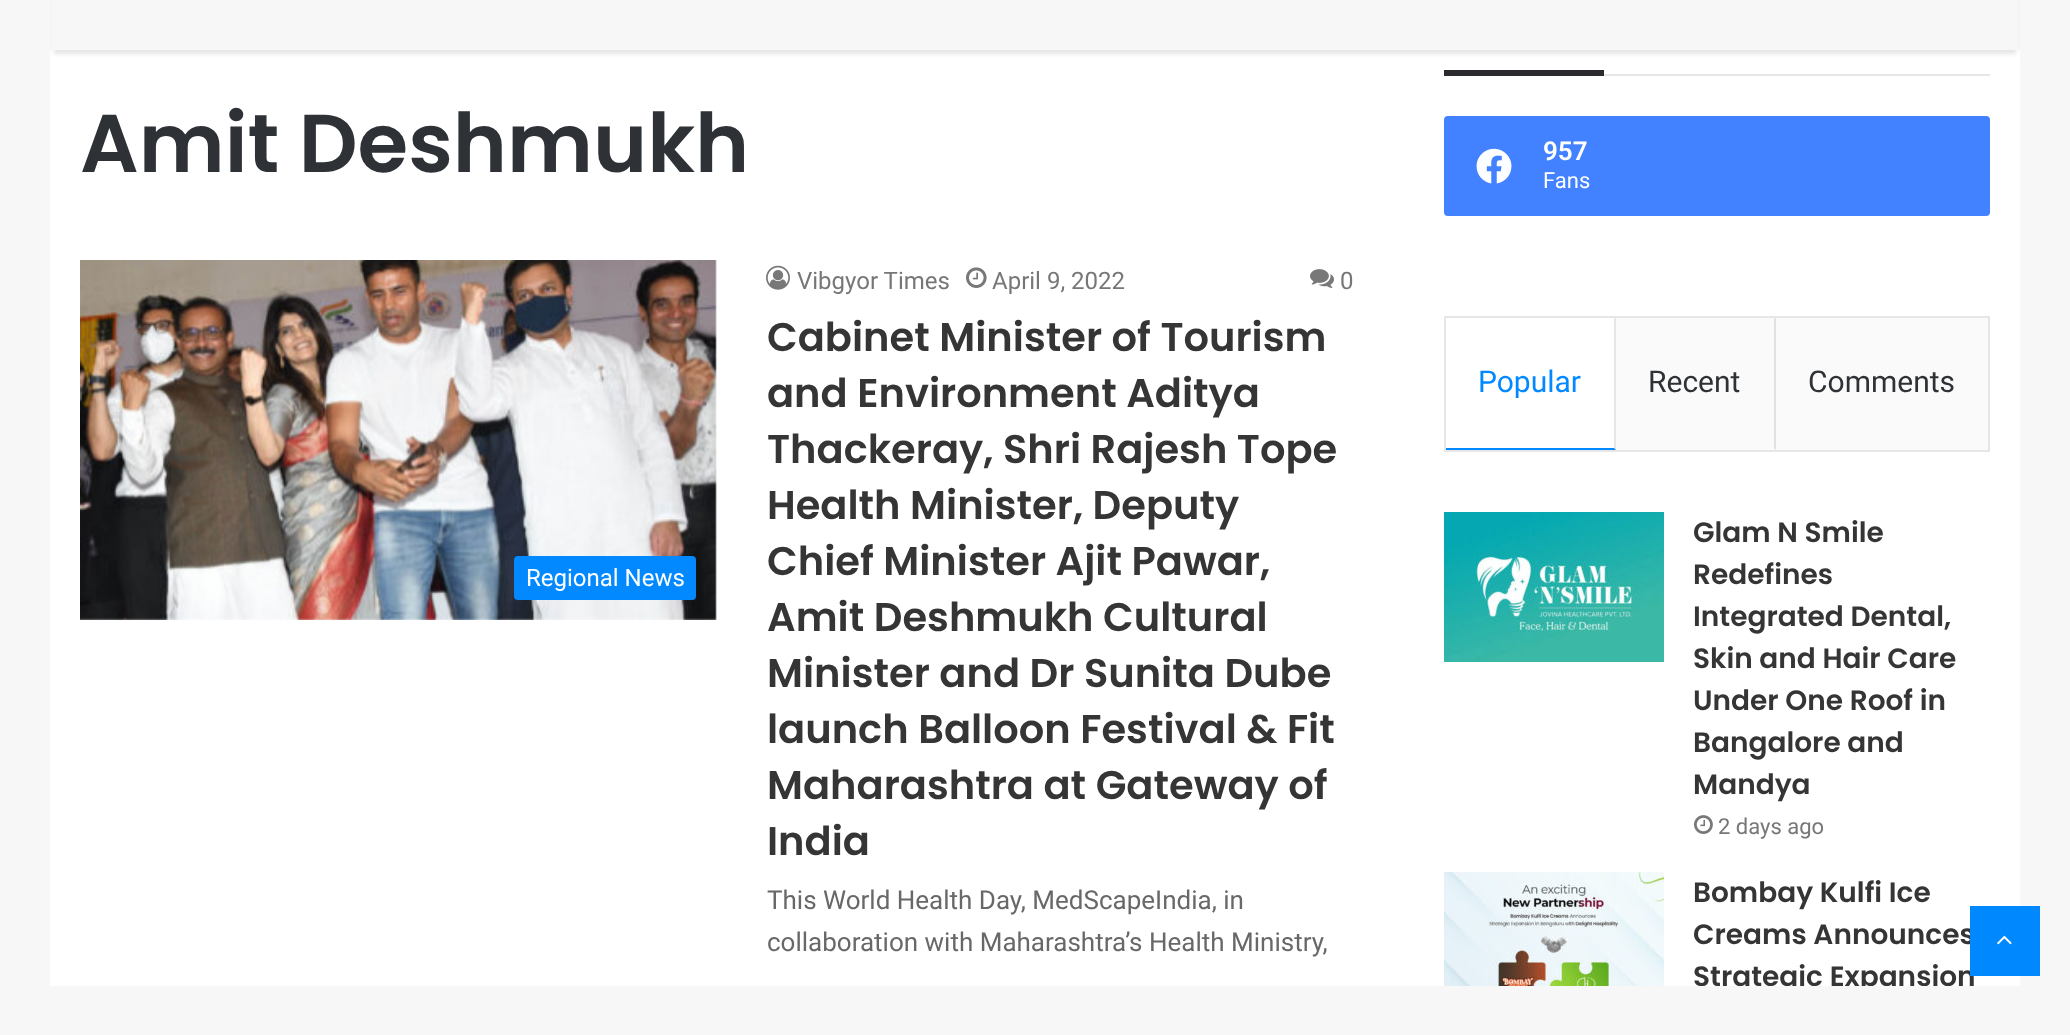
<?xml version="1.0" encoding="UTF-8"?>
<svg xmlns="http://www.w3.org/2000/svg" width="2070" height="1035">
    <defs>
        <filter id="blur1" x="-50%" y="-200%" width="200%" height="500%"><feGaussianBlur stdDeviation="2"/></filter>
    </defs>
    <rect width="100%" height="100%" fill="#F7F7F7"/>
    <rect x="50" y="50" width="1970" height="936" fill="#FFFFFF"/>
    <rect x="54" y="-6" width="1962" height="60" fill="#000000" fill-opacity="0.1" filter="url(#blur1)"/>
    <rect x="52" y="0" width="1966" height="50" fill="#F7F7F7"/>
    <text x="80" y="172" font-family="Poppins" font-size="82" font-weight="600" fill="#2E3136">Amit Deshmukh</text>
    <image x="80" y="260" width="637" height="360" href="img_01.png"/>
    <rect x="514" y="556" width="182" height="44" rx="4" fill="#0389FF"/>
    <text x="526" y="586" font-family="Roboto" font-size="24" fill="#FFFFFF">Regional News</text>
    <image x="766" y="265" width="24" height="25" href="img_02.png"/>
    <text x="797" y="289" font-family="Roboto" font-size="24" fill="#777777">Vibgyor Times</text>
    <image x="966" y="267" width="21" height="21" href="img_03.png"/>
    <text x="992" y="289" font-family="Roboto" font-size="24" fill="#777777">April 9, 2022</text>
    <image x="1310" y="269" width="24" height="19" href="img_04.png"/>
    <text x="1340" y="289" font-family="Roboto" font-size="24" fill="#777777">0</text>
    <text font-family="Poppins" font-size="40" font-weight="600" fill="#353535">
        <tspan x="767" y="351">Cabinet Minister of Tourism</tspan>
        <tspan x="767" y="407">and Environment Aditya</tspan>
        <tspan x="767" y="463">Thackeray, Shri Rajesh Tope</tspan>
        <tspan x="767" y="519">Health Minister, Deputy</tspan>
        <tspan x="767" y="575">Chief Minister Ajit Pawar,</tspan>
        <tspan x="767" y="631">Amit Deshmukh Cultural</tspan>
        <tspan x="767" y="687">Minister and Dr Sunita Dube</tspan>
        <tspan x="767" y="743">launch Balloon Festival &amp; Fit</tspan>
        <tspan x="767" y="799">Maharashtra at Gateway of</tspan>
        <tspan x="767" y="855">India</tspan>
    </text>
    <text font-family="Roboto" font-size="26" fill="#686868">
        <tspan x="767" y="909">This World Health Day, MedScapeIndia, in</tspan>
        <tspan x="767" y="951">collaboration with Maharashtra’s Health Ministry,</tspan>
    </text>
    <rect x="1604" y="74" width="386" height="2" fill="#E6E6E6"/>
    <rect x="1444" y="70" width="160" height="6" fill="#292B2F"/>
    <rect x="1444" y="116" width="546" height="100" rx="4" fill="#4281FF"/>
    <image x="1476" y="148" width="36" height="36" href="img_05.png"/>
    <text x="1543" y="160" font-family="Roboto" font-size="26" font-weight="600" fill="#FFFFFF">957</text>
    <text x="1543" y="188" font-family="Roboto" font-size="22" fill="#FFFFFF">Fans</text>
    <rect x="1445" y="317" width="544" height="134" fill="none" stroke="#E6E6E6" stroke-width="2"/>
    <path d="M 1616 318 V 450 L 1614 448 V 318 Z" fill="#E6E6E6"/>
    <path d="M 1616 450 H 1446 V 448 H 1614 Z" fill="#0389FF"/>
    <text x="1478" y="392" font-family="Roboto" font-size="30" fill="#0389FF">Popular</text>
    <rect x="1616" y="318" width="372" height="132" fill="#FAFAFA"/>
    <path d="M 1776 318 V 450 L 1774 448 V 318 Z" fill="#E1E1E1"/>
    <text x="1648" y="392" font-family="Roboto" font-size="30" fill="#2E3136">Recent</text>
    <text x="1808" y="392" font-family="Roboto" font-size="30" fill="#2E3136">Comments</text>
    <image x="1444" y="512" width="220" height="150" href="img_06.png"/>
    <text font-family="Poppins" font-size="28" font-weight="600" fill="#353535">
        <tspan x="1693" y="542">Glam N Smile</tspan>
        <tspan x="1693" y="584">Redefines</tspan>
        <tspan x="1693" y="626">Integrated Dental,</tspan>
        <tspan x="1693" y="668">Skin and Hair Care</tspan>
        <tspan x="1693" y="710">Under One Roof in</tspan>
        <tspan x="1693" y="752">Bangalore and</tspan>
        <tspan x="1693" y="794">Mandya</tspan>
    </text>
    <image x="1694" y="815" width="19" height="19" href="img_07.png"/>
    <text x="1718" y="834" font-family="Roboto" font-size="22" fill="#777777">2 days ago</text>
    <image x="1444" y="872" width="220" height="114" href="img_08.png"/>
    <text font-family="Poppins" font-size="28" font-weight="600" fill="#353535">
        <tspan x="1693" y="902">Bombay Kulfi Ice</tspan>
        <tspan x="1693" y="944">Creams Announces</tspan>
        <tspan x="1693" y="986">Strategic Expansion</tspan>
    </text>
    <rect x="1970" y="906" width="70" height="70" fill="#0088FF"/>
    <image x="1997" y="935" width="15" height="10" href="img_09.png"/>
    <rect x="1700" y="986" width="251" height="8" fill="#F7F7F7"/>
</svg>
